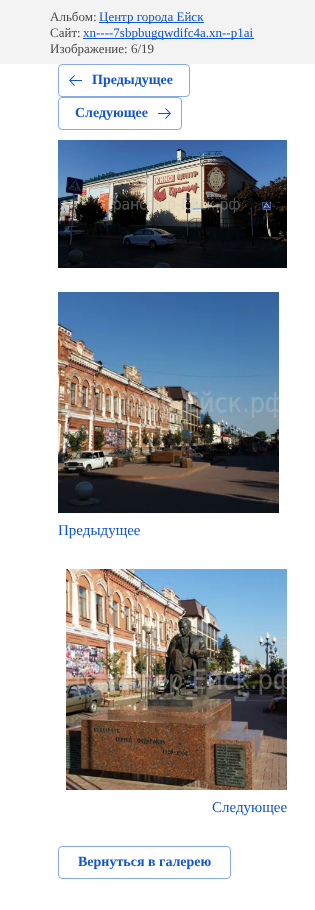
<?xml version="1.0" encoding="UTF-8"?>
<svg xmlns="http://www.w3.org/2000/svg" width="315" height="910">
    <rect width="100%" height="100%" fill="#FFFFFF"/>
    <rect x="0" y="0" width="315" height="64" fill="#F3F3F3"/>
    <text x="50" y="21" font-family="Liberation Serif" font-size="13" fill="#484848">Альбом:</text>
    <rect x="99" y="22" width="105" height="1" fill="#1155CC"/>
    <text x="99" y="21" font-family="Liberation Serif" font-size="13" fill="#1155CC">Центр города Ейск</text>
    <text x="50" y="37" font-family="Liberation Serif" font-size="13" fill="#484848">Сайт:</text>
    <rect x="83" y="38" width="171" height="1" fill="#1155CC"/>
    <text x="83" y="37" font-family="Liberation Serif" font-size="13" fill="#1155CC">xn----7sbpbugqwdifc4a.xn--p1ai</text>
    <text x="50" y="53" font-family="Liberation Serif" font-size="13" fill="#484848">Изображение: 6/19</text>
    <rect x="58.5" y="64.5" width="131" height="32" rx="3.5" fill="none" stroke="#88AAE6"/>
    <image x="69" y="75" width="13" height="11" href="img_01.png"/>
    <text x="92" y="84" font-family="Liberation Serif" font-size="14" font-weight="700" fill="#1155CC">Предыдущее</text>
    <rect x="58.5" y="97.5" width="123" height="32" rx="3.5" fill="none" stroke="#88AAE6"/>
    <text x="75" y="117" font-family="Liberation Serif" font-size="14" font-weight="700" fill="#1155CC">Следующее</text>
    <image x="158" y="108" width="13" height="11" href="img_02.png"/>
    <image x="58" y="140" width="229" height="128" href="img_03.png"/>
    <image x="58" y="292" width="221" height="221" href="img_04.png"/>
    <text x="58" y="535" font-family="Liberation Serif" font-size="15" fill="#1155CC">Предыдущее</text>
    <image x="66" y="569" width="221" height="221" href="img_05.png"/>
    <text x="212" y="812" font-family="Liberation Serif" font-size="15" fill="#1155CC">Следующее</text>
    <rect x="58.5" y="846.5" width="172" height="32" rx="3.5" fill="none" stroke="#88AAE6"/>
    <text x="78" y="866" font-family="Liberation Serif" font-size="14" font-weight="700" fill="#1155CC">Вернуться в галерею</text>
</svg>
